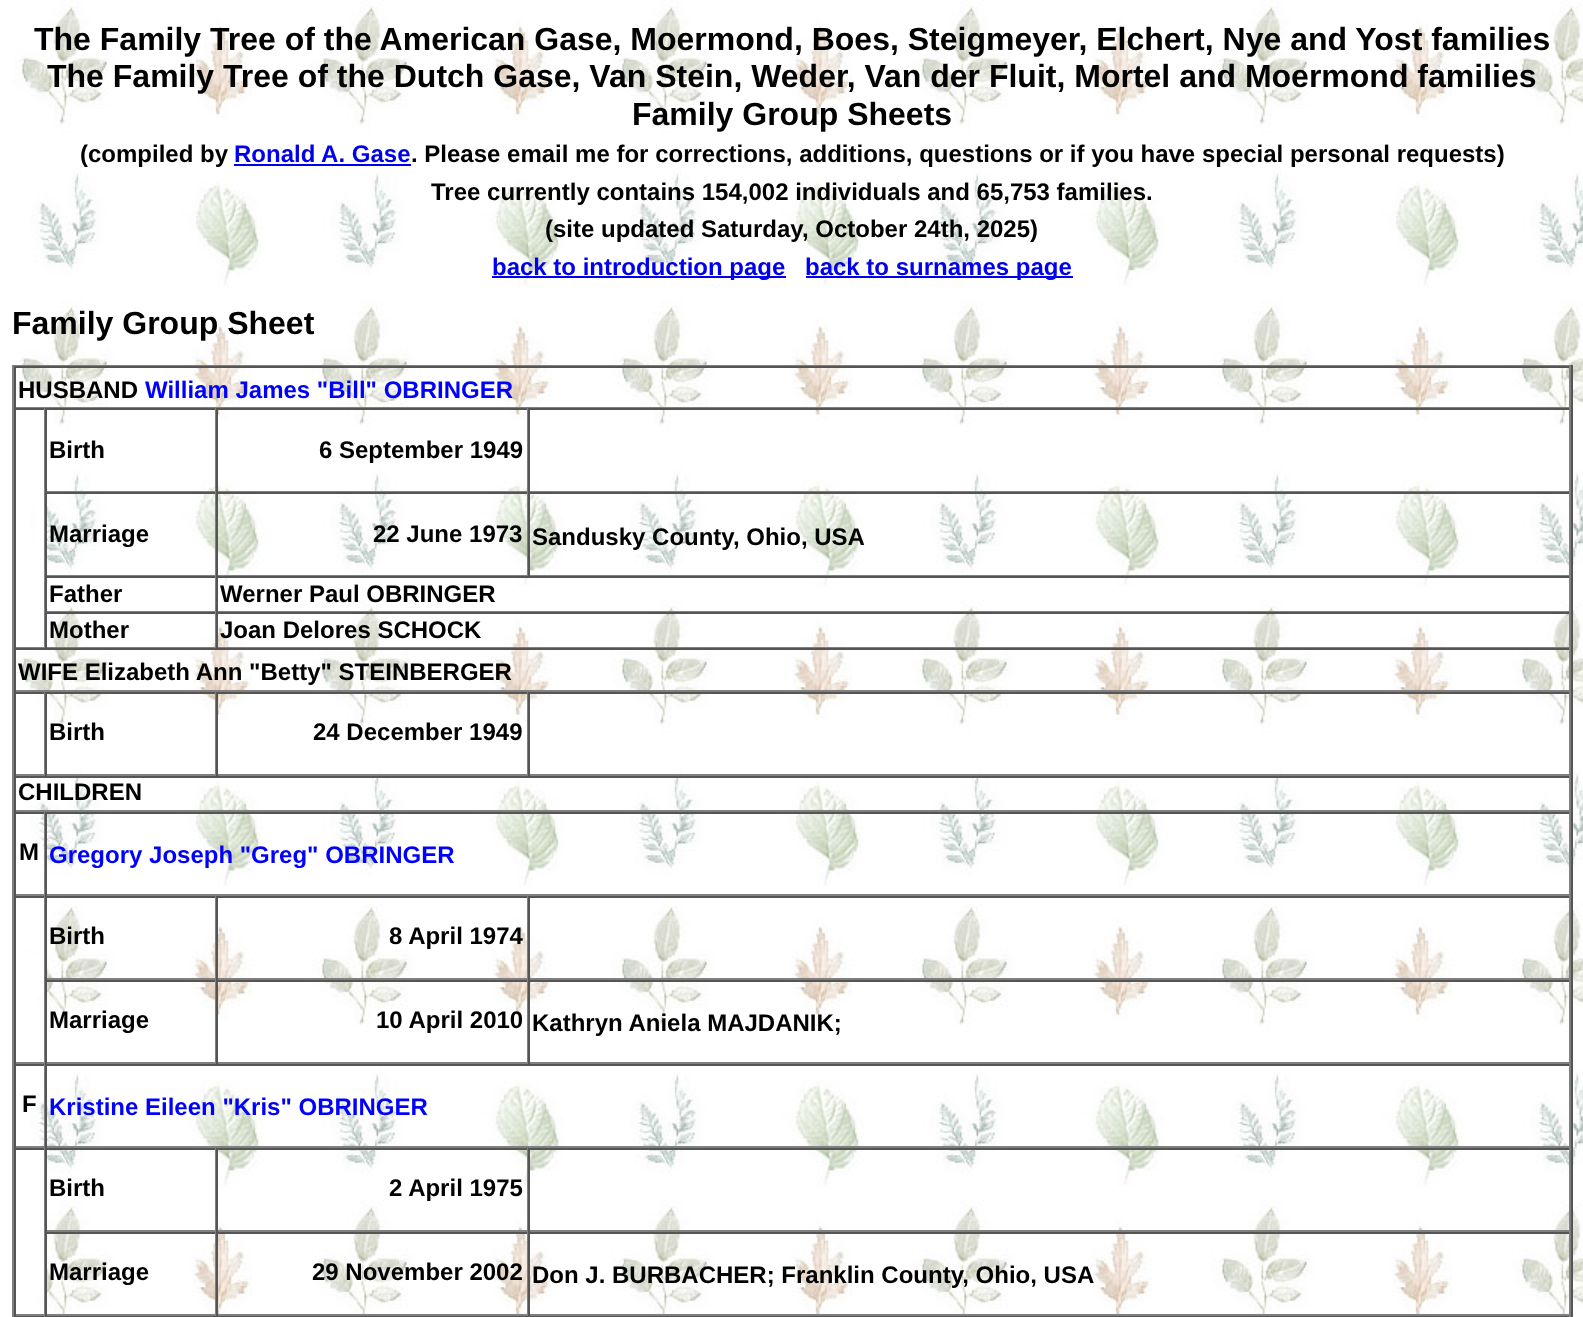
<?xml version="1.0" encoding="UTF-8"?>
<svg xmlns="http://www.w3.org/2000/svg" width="1583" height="1317">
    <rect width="100%" height="100%" fill="#FFFFFF"/>
    <image x="14" y="0" width="1569" height="1317" href="img_01.png"/>
    <text x="34" y="50" font-family="Liberation Sans" font-size="32" font-weight="700" fill="#000000">The Family Tree of the American Gase, Moermond, Boes, Steigmeyer, Elchert, Nye and Yost families</text>
    <text x="47" y="87" font-family="Liberation Sans" font-size="32" font-weight="700" fill="#000000">The Family Tree of the Dutch Gase, Van Stein, Weder, Van der Fluit, Mortel and Moermond families</text>
    <text x="632" y="125" font-family="Liberation Sans" font-size="32" font-weight="700" fill="#000000">Family Group Sheets</text>
    <text x="80" y="162" font-family="Liberation Sans" font-size="24" font-weight="700" fill="#000000">(compiled by</text>
    <text x="234" y="162" font-family="Liberation Sans" font-size="24" font-weight="700" fill="#0000EE">Ronald A. Gase</text>
    <text x="411" y="162" font-family="Liberation Sans" font-size="24" font-weight="700" fill="#000000">. Please email me for corrections, additions, questions or if you have special personal requests)</text>
    <rect x="234" y="164" width="177" height="2" fill="#0000EE"/>
    <text x="431" y="200" font-family="Liberation Sans" font-size="24" font-weight="700" fill="#000000">Tree currently contains 154,002 individuals and 65,753 families.</text>
    <text x="545" y="237" font-family="Liberation Sans" font-size="24" font-weight="700" fill="#000000">(site updated Saturday, October 24th, 2025)</text>
    <rect x="492" y="276" width="294" height="2" fill="#0000EE"/>
    <text x="492" y="275" font-family="Liberation Sans" font-size="24" font-weight="700" fill="#0000EE">back to introduction page</text>
    <rect x="806" y="276" width="267" height="2" fill="#0000EE"/>
    <text x="805" y="275" font-family="Liberation Sans" font-size="24" font-weight="700" fill="#0000EE">back to surnames page</text>
    <text x="12" y="334" font-family="Liberation Sans" font-size="32" font-weight="700" fill="#000000">Family Group Sheet</text>
    <image x="12" y="364" width="1560" height="950" href="img_02.png"/>
    <rect x="12" y="365" width="1560" height="1" fill="#808080"/>
    <rect x="1571" y="365" width="2" height="952" fill="#555555"/>
    <rect x="12" y="365" width="2" height="952" fill="#808080"/>
    <rect x="14" y="366" width="1557" height="2" fill="#555555"/>
    <rect x="1569" y="366" width="2" height="42" fill="#808080"/>
    <rect x="14" y="407" width="1557" height="1" fill="#808080"/>
    <rect x="14" y="366" width="2" height="42" fill="#555555"/>
    <text x="18" y="398" font-family="Liberation Sans" font-size="24" font-weight="700" fill="#000000">HUSBAND</text>
    <text x="145" y="398" font-family="Liberation Sans" font-size="24" font-weight="700" fill="#0000FF">William James "Bill" OBRINGER</text>
    <rect x="36" y="500" width="8" height="63" fill="#FFFFFF"/>
    <rect x="14" y="408" width="1557" height="2" fill="#555555"/>
    <rect x="44" y="408" width="1" height="240" fill="#808080"/>
    <rect x="14" y="647" width="31" height="1" fill="#808080"/>
    <rect x="14" y="408" width="2" height="240" fill="#555555"/>
    <rect x="215" y="408" width="1" height="84" fill="#808080"/>
    <rect x="45" y="491" width="171" height="1" fill="#808080"/>
    <rect x="45" y="408" width="2" height="84" fill="#555555"/>
    <text x="49" y="458" font-family="Liberation Sans" font-size="24" font-weight="700" fill="#000000">Birth</text>
    <rect x="527" y="408" width="1" height="84" fill="#808080"/>
    <rect x="216" y="491" width="312" height="1" fill="#808080"/>
    <rect x="216" y="408" width="2" height="84" fill="#555555"/>
    <text x="319" y="458" font-family="Liberation Sans" font-size="24" font-weight="700" fill="#000000">6 September 1949</text>
    <rect x="1569" y="408" width="2" height="84" fill="#808080"/>
    <rect x="528" y="491" width="1043" height="1" fill="#808080"/>
    <rect x="528" y="408" width="2" height="84" fill="#555555"/>
    <rect x="45" y="492" width="1526" height="2" fill="#555555"/>
    <rect x="215" y="492" width="1" height="84" fill="#808080"/>
    <rect x="45" y="575" width="171" height="1" fill="#808080"/>
    <rect x="45" y="492" width="2" height="84" fill="#555555"/>
    <text x="49" y="542" font-family="Liberation Sans" font-size="24" font-weight="700" fill="#000000">Marriage</text>
    <rect x="527" y="492" width="1" height="84" fill="#808080"/>
    <rect x="216" y="575" width="312" height="1" fill="#808080"/>
    <rect x="216" y="492" width="2" height="84" fill="#555555"/>
    <text x="373" y="542" font-family="Liberation Sans" font-size="24" font-weight="700" fill="#000000">22 June 1973</text>
    <rect x="1569" y="492" width="2" height="84" fill="#808080"/>
    <rect x="528" y="575" width="1043" height="1" fill="#808080"/>
    <rect x="528" y="492" width="2" height="84" fill="#555555"/>
    <text x="532" y="545" font-family="Liberation Sans" font-size="24" font-weight="700" fill="#000000">Sandusky County, Ohio, USA</text>
    <rect x="45" y="576" width="1526" height="2" fill="#555555"/>
    <rect x="215" y="576" width="1" height="36" fill="#808080"/>
    <rect x="45" y="611" width="171" height="1" fill="#808080"/>
    <rect x="45" y="576" width="2" height="36" fill="#555555"/>
    <text x="49" y="602" font-family="Liberation Sans" font-size="24" font-weight="700" fill="#000000">Father</text>
    <rect x="1569" y="576" width="2" height="36" fill="#808080"/>
    <rect x="216" y="611" width="1355" height="1" fill="#808080"/>
    <rect x="216" y="576" width="2" height="36" fill="#555555"/>
    <text x="220" y="602" font-family="Liberation Sans" font-size="24" font-weight="700" fill="#000000">Werner Paul OBRINGER</text>
    <rect x="45" y="612" width="1526" height="2" fill="#555555"/>
    <rect x="215" y="612" width="1" height="36" fill="#808080"/>
    <rect x="45" y="647" width="171" height="1" fill="#808080"/>
    <rect x="45" y="612" width="2" height="36" fill="#555555"/>
    <text x="49" y="638" font-family="Liberation Sans" font-size="24" font-weight="700" fill="#000000">Mother</text>
    <rect x="1569" y="612" width="2" height="36" fill="#808080"/>
    <rect x="216" y="647" width="1355" height="1" fill="#808080"/>
    <rect x="216" y="612" width="2" height="36" fill="#555555"/>
    <text x="220" y="638" font-family="Liberation Sans" font-size="24" font-weight="700" fill="#000000">Joan Delores SCHOCK</text>
    <rect x="14" y="648" width="1557" height="2" fill="#555555"/>
    <rect x="1569" y="648" width="2" height="44" fill="#808080"/>
    <rect x="14" y="690" width="1557" height="2" fill="#808080"/>
    <rect x="14" y="648" width="2" height="44" fill="#555555"/>
    <text x="18" y="680" font-family="Liberation Sans" font-size="24" font-weight="700" fill="#000000">WIFE Elizabeth Ann "Betty" STEINBERGER</text>
    <rect x="31" y="694" width="13" height="3" fill="#FFFFFF"/>
    <rect x="14" y="692" width="1557" height="2" fill="#555555"/>
    <rect x="44" y="692" width="1" height="84" fill="#808080"/>
    <rect x="14" y="774" width="31" height="2" fill="#808080"/>
    <rect x="14" y="692" width="2" height="84" fill="#555555"/>
    <rect x="215" y="692" width="1" height="84" fill="#808080"/>
    <rect x="45" y="774" width="171" height="2" fill="#808080"/>
    <rect x="45" y="692" width="2" height="84" fill="#555555"/>
    <text x="49" y="740" font-family="Liberation Sans" font-size="24" font-weight="700" fill="#000000">Birth</text>
    <rect x="527" y="692" width="1" height="84" fill="#808080"/>
    <rect x="216" y="774" width="312" height="2" fill="#808080"/>
    <rect x="216" y="692" width="2" height="84" fill="#555555"/>
    <text x="313" y="740" font-family="Liberation Sans" font-size="24" font-weight="700" fill="#000000">24 December 1949</text>
    <rect x="1569" y="692" width="2" height="84" fill="#808080"/>
    <rect x="528" y="774" width="1043" height="2" fill="#808080"/>
    <rect x="528" y="692" width="2" height="84" fill="#555555"/>
    <rect x="14" y="776" width="1557" height="2" fill="#555555"/>
    <rect x="1569" y="776" width="2" height="36" fill="#808080"/>
    <rect x="14" y="810" width="1557" height="2" fill="#808080"/>
    <rect x="14" y="776" width="2" height="36" fill="#555555"/>
    <text x="18" y="800" font-family="Liberation Sans" font-size="24" font-weight="700" fill="#000000">CHILDREN</text>
    <rect x="14" y="812" width="1557" height="2" fill="#555555"/>
    <rect x="44" y="812" width="1" height="84" fill="#808080"/>
    <rect x="14" y="894" width="31" height="2" fill="#808080"/>
    <rect x="14" y="812" width="2" height="84" fill="#555555"/>
    <text x="19" y="860" font-family="Liberation Sans" font-size="24" font-weight="700" fill="#000000">M</text>
    <rect x="1569" y="812" width="2" height="84" fill="#808080"/>
    <rect x="45" y="894" width="1526" height="2" fill="#808080"/>
    <rect x="45" y="812" width="2" height="84" fill="#555555"/>
    <text x="49" y="863" font-family="Liberation Sans" font-size="24" font-weight="700" fill="#0000FF">Gregory Joseph "Greg" OBRINGER</text>
    <rect x="16" y="954" width="28" height="43" fill="#FFFFFF"/>
    <rect x="14" y="896" width="1557" height="2" fill="#555555"/>
    <rect x="44" y="896" width="1" height="168" fill="#808080"/>
    <rect x="14" y="1062" width="31" height="2" fill="#808080"/>
    <rect x="14" y="896" width="2" height="168" fill="#555555"/>
    <rect x="215" y="896" width="1" height="84" fill="#808080"/>
    <rect x="45" y="978" width="171" height="2" fill="#808080"/>
    <rect x="45" y="896" width="2" height="84" fill="#555555"/>
    <text x="49" y="944" font-family="Liberation Sans" font-size="24" font-weight="700" fill="#000000">Birth</text>
    <rect x="527" y="896" width="1" height="84" fill="#808080"/>
    <rect x="216" y="978" width="312" height="2" fill="#808080"/>
    <rect x="216" y="896" width="2" height="84" fill="#555555"/>
    <text x="389" y="944" font-family="Liberation Sans" font-size="24" font-weight="700" fill="#000000">8 April 1974</text>
    <rect x="1569" y="896" width="2" height="84" fill="#808080"/>
    <rect x="528" y="978" width="1043" height="2" fill="#808080"/>
    <rect x="528" y="896" width="2" height="84" fill="#555555"/>
    <rect x="45" y="980" width="1526" height="2" fill="#555555"/>
    <rect x="215" y="980" width="1" height="84" fill="#808080"/>
    <rect x="45" y="1062" width="171" height="2" fill="#808080"/>
    <rect x="45" y="980" width="2" height="84" fill="#555555"/>
    <text x="49" y="1028" font-family="Liberation Sans" font-size="24" font-weight="700" fill="#000000">Marriage</text>
    <rect x="527" y="980" width="1" height="84" fill="#808080"/>
    <rect x="216" y="1062" width="312" height="2" fill="#808080"/>
    <rect x="216" y="980" width="2" height="84" fill="#555555"/>
    <text x="376" y="1028" font-family="Liberation Sans" font-size="24" font-weight="700" fill="#000000">10 April 2010</text>
    <rect x="1569" y="980" width="2" height="84" fill="#808080"/>
    <rect x="528" y="1062" width="1043" height="2" fill="#808080"/>
    <rect x="528" y="980" width="2" height="84" fill="#555555"/>
    <text x="532" y="1031" font-family="Liberation Sans" font-size="24" font-weight="700" fill="#000000">Kathryn Aniela MAJDANIK;</text>
    <rect x="14" y="1064" width="1557" height="2" fill="#555555"/>
    <rect x="44" y="1064" width="1" height="84" fill="#808080"/>
    <rect x="14" y="1146" width="31" height="2" fill="#808080"/>
    <rect x="14" y="1064" width="2" height="84" fill="#555555"/>
    <text x="22" y="1112" font-family="Liberation Sans" font-size="24" font-weight="700" fill="#000000">F</text>
    <rect x="1569" y="1064" width="2" height="84" fill="#808080"/>
    <rect x="45" y="1146" width="1526" height="2" fill="#808080"/>
    <rect x="45" y="1064" width="2" height="84" fill="#555555"/>
    <text x="49" y="1115" font-family="Liberation Sans" font-size="24" font-weight="700" fill="#0000FF">Kristine Eileen "Kris" OBRINGER</text>
    <rect x="16" y="1150" width="28" height="147" fill="#FFFFFF"/>
    <rect x="14" y="1148" width="1557" height="2" fill="#555555"/>
    <rect x="44" y="1148" width="1" height="168" fill="#808080"/>
    <rect x="14" y="1314" width="31" height="2" fill="#808080"/>
    <rect x="14" y="1148" width="2" height="168" fill="#555555"/>
    <rect x="215" y="1148" width="1" height="84" fill="#808080"/>
    <rect x="45" y="1230" width="171" height="2" fill="#808080"/>
    <rect x="45" y="1148" width="2" height="84" fill="#555555"/>
    <text x="49" y="1196" font-family="Liberation Sans" font-size="24" font-weight="700" fill="#000000">Birth</text>
    <rect x="527" y="1148" width="1" height="84" fill="#808080"/>
    <rect x="216" y="1230" width="312" height="2" fill="#808080"/>
    <rect x="216" y="1148" width="2" height="84" fill="#555555"/>
    <text x="389" y="1196" font-family="Liberation Sans" font-size="24" font-weight="700" fill="#000000">2 April 1975</text>
    <rect x="1569" y="1148" width="2" height="84" fill="#808080"/>
    <rect x="528" y="1230" width="1043" height="2" fill="#808080"/>
    <rect x="528" y="1148" width="2" height="84" fill="#555555"/>
    <rect x="45" y="1232" width="1526" height="2" fill="#555555"/>
    <rect x="215" y="1232" width="1" height="84" fill="#808080"/>
    <rect x="45" y="1314" width="171" height="2" fill="#808080"/>
    <rect x="45" y="1232" width="2" height="84" fill="#555555"/>
    <text x="49" y="1280" font-family="Liberation Sans" font-size="24" font-weight="700" fill="#000000">Marriage</text>
    <rect x="527" y="1232" width="1" height="84" fill="#808080"/>
    <rect x="216" y="1314" width="312" height="2" fill="#808080"/>
    <rect x="216" y="1232" width="2" height="84" fill="#555555"/>
    <text x="312" y="1280" font-family="Liberation Sans" font-size="24" font-weight="700" fill="#000000">29 November 2002</text>
    <rect x="1569" y="1232" width="2" height="84" fill="#808080"/>
    <rect x="528" y="1314" width="1043" height="2" fill="#808080"/>
    <rect x="528" y="1232" width="2" height="84" fill="#555555"/>
    <text x="532" y="1283" font-family="Liberation Sans" font-size="24" font-weight="700" fill="#000000">Don J. BURBACHER; Franklin County, Ohio, USA</text>
    <rect x="14" y="1316" width="31" height="1" fill="#555555"/>
    <rect x="44" y="1316" width="2" height="1" fill="#808080"/>
    <rect x="45" y="1316" width="1526" height="1" fill="#555555"/>
    <rect x="1569" y="1316" width="2" height="1" fill="#808080"/>
</svg>
